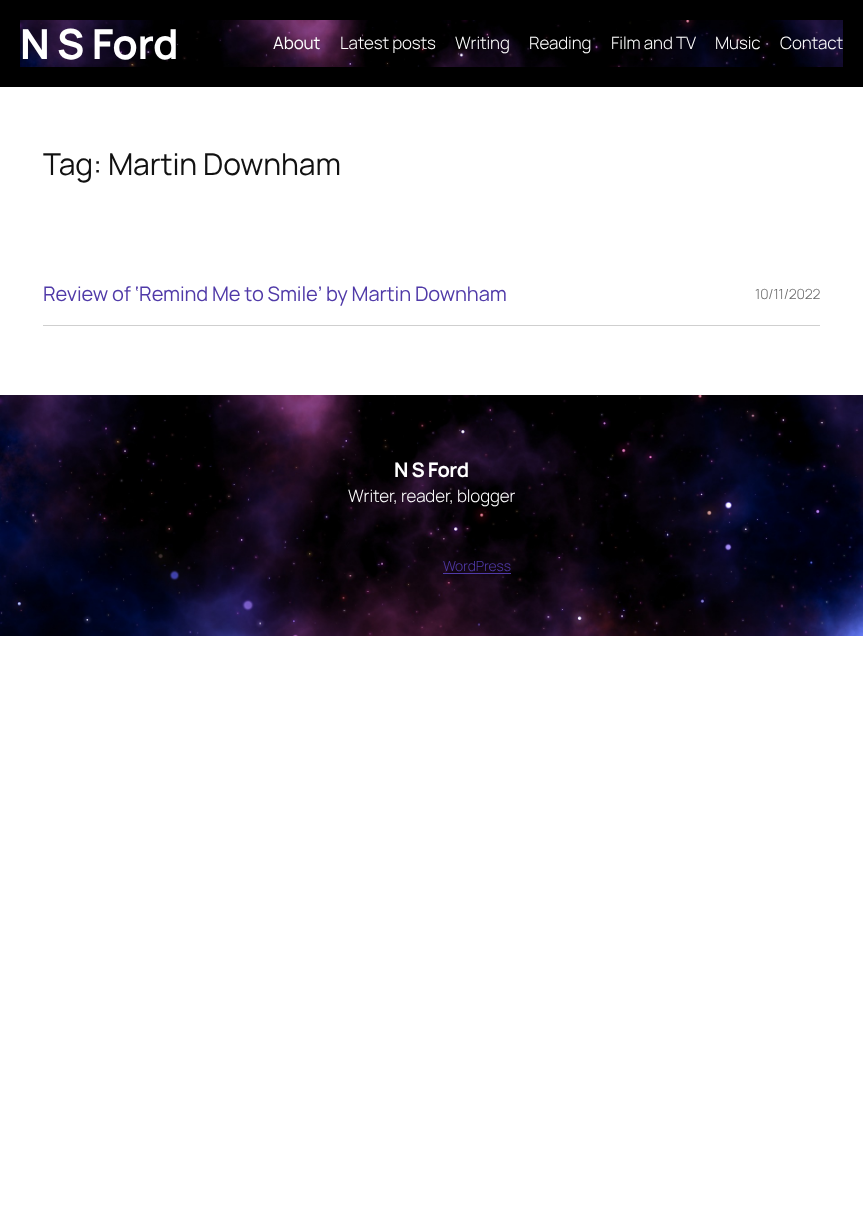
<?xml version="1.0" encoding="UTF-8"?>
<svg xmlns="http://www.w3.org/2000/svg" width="863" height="1222">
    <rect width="100%" height="100%" fill="#FFFFFF"/>
    <rect x="0" y="0" width="863" height="87" fill="#000000"/>
    <image x="20" y="20" width="823" height="47" href="img_01.png"/>
    <text x="20" y="59" font-family="Manrope" font-size="41.5" font-weight="700" letter-spacing="-0.5" fill="#FFFFFF">N S Ford</text>
    <text x="273" y="49" font-family="Manrope" font-size="17" letter-spacing="-0.1" fill="#FFFFFF">About</text>
    <text x="340" y="49" font-family="Manrope" font-size="17" font-weight="300" letter-spacing="-0.1" fill="#FFFFFF">Latest posts</text>
    <text x="455" y="49" font-family="Manrope" font-size="17" font-weight="300" letter-spacing="-0.1" fill="#FFFFFF">Writing</text>
    <text x="529" y="49" font-family="Manrope" font-size="17" font-weight="300" letter-spacing="-0.1" fill="#FFFFFF">Reading</text>
    <text x="611" y="49" font-family="Manrope" font-size="17" font-weight="300" letter-spacing="-0.1" fill="#FFFFFF">Film and TV</text>
    <text x="715" y="49" font-family="Manrope" font-size="17" font-weight="300" letter-spacing="-0.1" fill="#FFFFFF">Music</text>
    <text x="780" y="49" font-family="Manrope" font-size="17" font-weight="300" letter-spacing="-0.1" fill="#FFFFFF">Contact</text>
    <text x="43" y="175" font-family="Manrope" font-size="30.1" letter-spacing="-0.1" fill="#111111">Tag: Martin Downham</text>
    <rect x="43" y="325" width="777" height="1" fill="#CFCFCF"/>
    <text x="43" y="301" font-family="Manrope" font-size="20.1" letter-spacing="-0.1" fill="#503AA8">Review of ‘Remind Me to Smile’ by Martin Downham</text>
    <text x="755" y="299" font-family="Manrope" font-size="14" font-weight="300" letter-spacing="-0.1" fill="#686868">10/11/2022</text>
    <image x="0" y="395" width="863" height="241" href="img_02.png"/>
    <text x="394" y="477" font-family="Manrope" font-size="20.1" font-weight="700" letter-spacing="-0.5" fill="#FFFFFF">N S Ford</text>
    <text x="348" y="502" font-family="Manrope" font-size="17" font-weight="300" letter-spacing="-0.1" fill="#FFFFFF">Writer, reader, blogger</text>
    <text x="443" y="571" font-family="Manrope" font-size="14" font-weight="300" letter-spacing="-0.1" fill="#503AA8">WordPress</text>
    <rect x="443" y="573" width="68" height="1" fill="#503AA8"/>
</svg>
